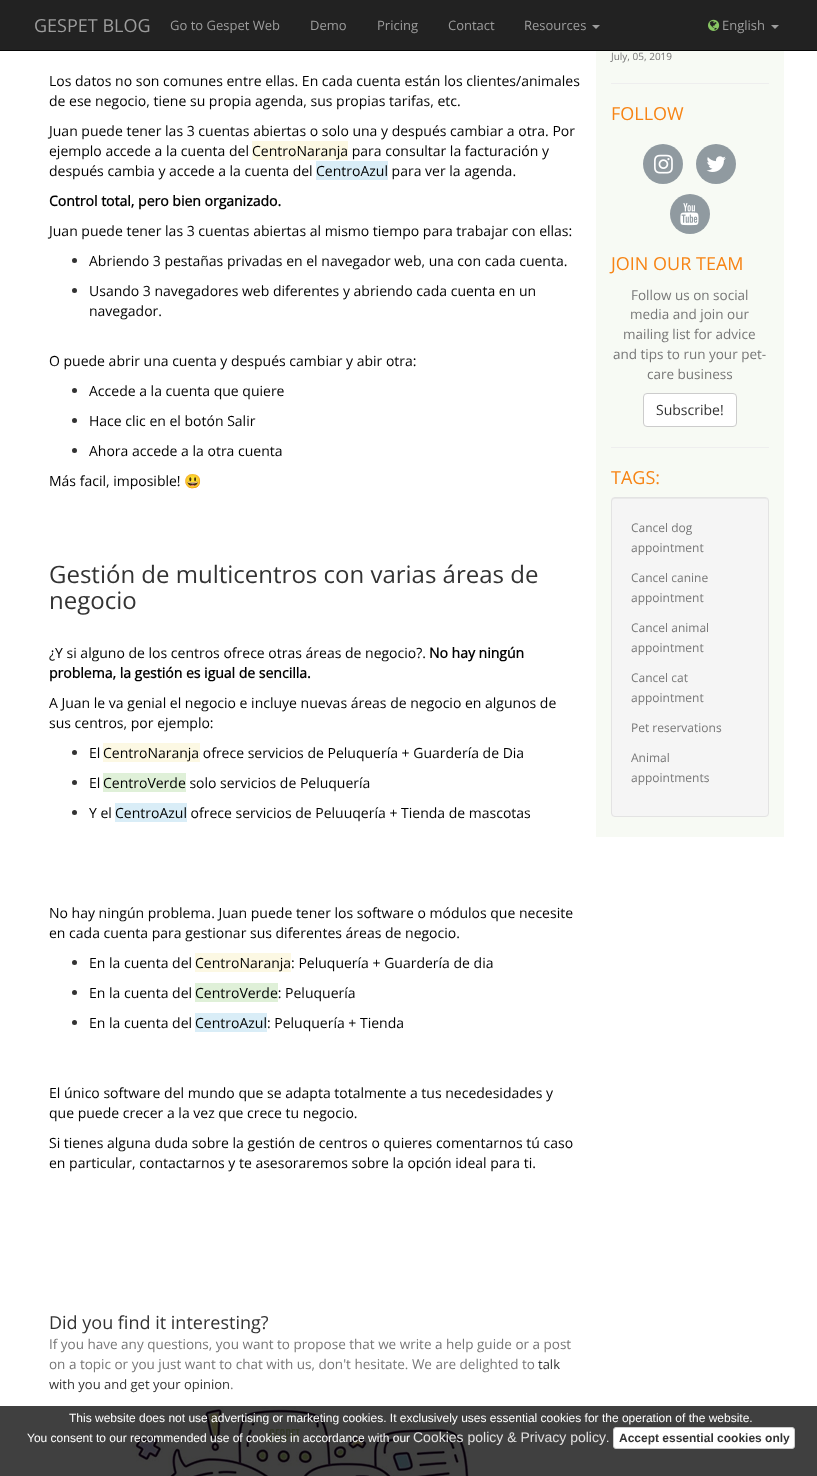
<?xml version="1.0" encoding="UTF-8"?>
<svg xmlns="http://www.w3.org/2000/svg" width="817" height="1476">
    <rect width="100%" height="100%" fill="#FFFFFF"/>
    <rect x="0" y="1406" width="817" height="70" fill="#404040"/>
    <rect x="0" y="0" width="817" height="50" fill="#222222"/>
    <rect x="0" y="50" width="817" height="1" fill="#080808"/>
    <text x="34" y="32" font-family="Open Sans" font-size="18" fill="#9D9D9D">GESPET BLOG</text>
    <text x="170" y="30" font-family="Open Sans" font-size="13" fill="#9D9D9D">Go to Gespet Web</text>
    <text x="310" y="30" font-family="Open Sans" font-size="13" fill="#9D9D9D">Demo</text>
    <text x="377" y="30" font-family="Open Sans" font-size="13" fill="#9D9D9D">Pricing</text>
    <text x="448" y="30" font-family="Open Sans" font-size="13" fill="#9D9D9D">Contact</text>
    <text x="524" y="30" font-family="Open Sans" font-size="13" fill="#9D9D9D">Resources</text>
    <path d="M 592 25 H 600 L 596 29 Z" fill="#9D9D9D"/>
    <image x="708" y="19" width="12" height="12" href="img_01.png"/>
    <text x="722" y="30" font-family="Open Sans" font-size="13" fill="#9D9D9D">English</text>
    <path d="M 771 25 H 779 L 775 29 Z" fill="#9D9D9D"/>
    <text font-family="Open Sans" font-size="14" fill="#000000">
        <tspan x="49" y="86">Los datos no son comunes entre ellas. En cada cuenta están los clientes/animales</tspan>
        <tspan x="49" y="106">de ese negocio, tiene su propia agenda, sus propias tarifas, etc.</tspan>
    </text>
    <text font-family="Open Sans" font-size="14" fill="#000000">
        <tspan x="49" y="136">Juan puede tener las 3 cuentas abiertas o solo una y después cambiar a otra. Por</tspan>
        <tspan x="49" y="156">ejemplo accede a la cuenta del</tspan>
    </text>
    <rect x="252" y="141" width="96" height="19" fill="#FCF8E3"/>
    <text x="252" y="156" font-family="Open Sans" font-size="14" fill="#000000">CentroNaranja para consultar la facturación y</text>
    <text x="49" y="176" font-family="Open Sans" font-size="14" fill="#000000">después cambia y accede a la cuenta del</text>
    <rect x="316" y="161" width="72" height="19" fill="#D9EDF7"/>
    <text x="316" y="176" font-family="Open Sans" font-size="14" fill="#000000">CentroAzul para ver la agenda.</text>
    <text x="49" y="206" font-family="Open Sans" font-size="14" font-weight="700" fill="#000000">Control total, pero bien organizado.</text>
    <text x="49" y="236" font-family="Open Sans" font-size="14" fill="#000000">Juan puede tener las 3 cuentas abiertas al mismo tiempo para trabajar con ellas:</text>
    <circle cx="74.5" cy="260.5" r="2.5" fill="#333333"/>
    <text x="89" y="266" font-family="Open Sans" font-size="14" fill="#000000">Abriendo 3 pestañas privadas en el navegador web, una con cada cuenta.</text>
    <circle cx="74.5" cy="290.5" r="2.5" fill="#333333"/>
    <text font-family="Open Sans" font-size="14" fill="#000000">
        <tspan x="89" y="296">Usando 3 navegadores web diferentes y abriendo cada cuenta en un</tspan>
        <tspan x="89" y="316">navegador.</tspan>
    </text>
    <text x="49" y="366" font-family="Open Sans" font-size="14" fill="#000000">O puede abrir una cuenta y después cambiar y abir otra:</text>
    <circle cx="74.5" cy="390.5" r="2.5" fill="#333333"/>
    <text x="89" y="396" font-family="Open Sans" font-size="14" fill="#000000">Accede a la cuenta que quiere</text>
    <circle cx="74.5" cy="420.5" r="2.5" fill="#333333"/>
    <text x="89" y="426" font-family="Open Sans" font-size="14" fill="#000000">Hace clic en el botón Salir</text>
    <circle cx="74.5" cy="450.5" r="2.5" fill="#333333"/>
    <text x="89" y="456" font-family="Open Sans" font-size="14" fill="#000000">Ahora accede a la otra cuenta</text>
    <text x="49" y="486" font-family="Open Sans" font-size="14" fill="#000000">Más facil, imposible!</text>
    <text x="184" y="486" font-family="Noto Color Emoji" font-size="14" fill="#000000">😃</text>
    <text font-family="Open Sans" font-size="24" fill="#333333">
        <tspan x="49" y="583">Gestión de multicentros con varias áreas de</tspan>
        <tspan x="49" y="609">negocio</tspan>
    </text>
    <text x="49" y="658" font-family="Open Sans" font-size="14" fill="#000000">¿Y si alguno de los centros ofrece otras áreas de negocio?.</text>
    <text x="429" y="658" font-family="Open Sans" font-size="14" font-weight="700" fill="#000000">No hay ningún</text>
    <text x="49" y="678" font-family="Open Sans" font-size="14" font-weight="700" fill="#000000">problema, la gestión es igual de sencilla.</text>
    <text font-family="Open Sans" font-size="14" fill="#000000">
        <tspan x="49" y="708">A Juan le va genial el negocio e incluye nuevas áreas de negocio en algunos de</tspan>
        <tspan x="49" y="728">sus centros, por ejemplo:</tspan>
    </text>
    <circle cx="74.5" cy="752.5" r="2.5" fill="#333333"/>
    <text x="89" y="758" font-family="Open Sans" font-size="14" fill="#000000">El</text>
    <rect x="103" y="743" width="97" height="19" fill="#FCF8E3"/>
    <text x="103" y="758" font-family="Open Sans" font-size="14" fill="#000000">CentroNaranja ofrece servicios de Peluquería + Guardería de Dia</text>
    <circle cx="74.5" cy="782.5" r="2.5" fill="#333333"/>
    <text x="89" y="788" font-family="Open Sans" font-size="14" fill="#000000">El</text>
    <rect x="103" y="773" width="83" height="19" fill="#DFF0D8"/>
    <text x="103" y="788" font-family="Open Sans" font-size="14" fill="#000000">CentroVerde solo servicios de Peluquería</text>
    <circle cx="74.5" cy="812.5" r="2.5" fill="#333333"/>
    <text x="89" y="818" font-family="Open Sans" font-size="14" fill="#000000">Y el</text>
    <rect x="115" y="803" width="72" height="19" fill="#D9EDF7"/>
    <text x="115" y="818" font-family="Open Sans" font-size="14" fill="#000000">CentroAzul ofrece servicios de Peluuqería + Tienda de mascotas</text>
    <text font-family="Open Sans" font-size="14" fill="#000000">
        <tspan x="49" y="918">No hay ningún problema. Juan puede tener los software o módulos que necesite</tspan>
        <tspan x="49" y="938">en cada cuenta para gestionar sus diferentes áreas de negocio.</tspan>
    </text>
    <circle cx="74.5" cy="962.5" r="2.5" fill="#333333"/>
    <text x="89" y="968" font-family="Open Sans" font-size="14" fill="#000000">En la cuenta del</text>
    <rect x="195" y="953" width="96" height="19" fill="#FCF8E3"/>
    <text x="195" y="968" font-family="Open Sans" font-size="14" fill="#000000">CentroNaranja: Peluquería + Guardería de dia</text>
    <circle cx="74.5" cy="992.5" r="2.5" fill="#333333"/>
    <text x="89" y="998" font-family="Open Sans" font-size="14" fill="#000000">En la cuenta del</text>
    <rect x="195" y="983" width="83" height="19" fill="#DFF0D8"/>
    <text x="195" y="998" font-family="Open Sans" font-size="14" fill="#000000">CentroVerde: Peluquería</text>
    <circle cx="74.5" cy="1022.5" r="2.5" fill="#333333"/>
    <text x="89" y="1028" font-family="Open Sans" font-size="14" fill="#000000">En la cuenta del</text>
    <rect x="195" y="1013" width="72" height="19" fill="#D9EDF7"/>
    <text x="195" y="1028" font-family="Open Sans" font-size="14" fill="#000000">CentroAzul: Peluquería + Tienda</text>
    <text font-family="Open Sans" font-size="14" fill="#000000">
        <tspan x="49" y="1098">El único software del mundo que se adapta totalmente a tus necedesidades y</tspan>
        <tspan x="49" y="1118">que puede crecer a la vez que crece tu negocio.</tspan>
    </text>
    <text font-family="Open Sans" font-size="14" fill="#000000">
        <tspan x="49" y="1148">Si tienes alguna duda sobre la gestión de centros o quieres comentarnos tú caso</tspan>
        <tspan x="49" y="1168">en particular, contactarnos y te asesoraremos sobre la opción ideal para ti.</tspan>
    </text>
    <text x="49" y="1329" font-family="Open Sans" font-size="18" fill="#333333">Did you find it interesting?</text>
    <text font-family="Open Sans" font-size="13.5" fill="#777777">
        <tspan x="49" y="1349">If you have any questions, you want to propose that we write a help guide or a post</tspan>
        <tspan x="49" y="1369">on a topic or you just want to chat with us, don't hesitate. We are delighted to</tspan>
    </text>
    <text x="538" y="1369" font-family="Open Sans" font-size="13" fill="#333333">talk</text>
    <text x="49" y="1389" font-family="Open Sans" font-size="13" fill="#333333">with you and get your opinion</text>
    <text x="230" y="1389" font-family="Open Sans" font-size="13.5" fill="#777777">.</text>
    <image x="132" y="1406" width="338" height="70" href="img_02.png"/>
    <rect x="596" y="51" width="188" height="786" fill="#F7FAF4"/>
    <text x="611" y="60" font-family="Open Sans" font-size="10" fill="#777777">July, 05, 2019</text>
    <rect x="611" y="83" width="158" height="1" fill="#EEEEEE"/>
    <text x="611" y="120" font-family="Open Sans" font-size="18" fill="#F78414">FOLLOW</text>
    <circle cx="663" cy="164" r="20" fill="#909AA0"/>
    <image x="654" y="154" width="19" height="20" href="img_03.png"/>
    <circle cx="716" cy="164" r="20" fill="#909AA0"/>
    <image x="706" y="156" width="20" height="16" href="img_04.png"/>
    <circle cx="690" cy="214" r="20" fill="#909AA0"/>
    <image x="680" y="203" width="19" height="23" href="img_05.png"/>
    <text x="611" y="270" font-family="Open Sans" font-size="18" fill="#F78414">JOIN OUR TEAM</text>
    <text x="631" y="300" font-family="Open Sans" font-size="13.5" fill="#777777">Follow us on social</text>
    <text x="630" y="319" font-family="Open Sans" font-size="13.5" fill="#777777">media and join our</text>
    <text x="623" y="339" font-family="Open Sans" font-size="13.5" fill="#777777">mailing list for advice</text>
    <text x="613" y="359" font-family="Open Sans" font-size="13.5" fill="#777777">and tips to run your pet-</text>
    <text x="647" y="379" font-family="Open Sans" font-size="13.5" fill="#777777">care business</text>
    <rect x="643.5" y="393.5" width="93" height="33" rx="3.5" fill="#FFFFFF" stroke="#CCCCCC"/>
    <text x="656" y="415" font-family="Open Sans" font-size="14" fill="#333333">Subscribe!</text>
    <rect x="611" y="447" width="158" height="1" fill="#EEEEEE"/>
    <text x="611" y="484" font-family="Open Sans" font-size="18" fill="#F78414">TAGS:</text>
    <rect x="611" y="497" width="158" height="320" rx="4" fill="#F5F5F5"/>
    <path d="M 615 499 H 765 C 767 499 768 500 768 502 C 768 500 767 498 765 498 H 614 C 612 498 612 500 612 502 C 612 500 613 499 615 499 Z" fill="#E9E9E9"/>
    <rect x="611.5" y="497.5" width="157" height="319" rx="3.5" fill="none" stroke="#E3E3E3"/>
    <text font-family="Open Sans" font-size="12" fill="#777777">
        <tspan x="631" y="532">Cancel dog</tspan>
        <tspan x="631" y="552">appointment</tspan>
    </text>
    <text font-family="Open Sans" font-size="12" fill="#777777">
        <tspan x="631" y="582">Cancel canine</tspan>
        <tspan x="631" y="602">appointment</tspan>
    </text>
    <text font-family="Open Sans" font-size="12" fill="#777777">
        <tspan x="631" y="632">Cancel animal</tspan>
        <tspan x="631" y="652">appointment</tspan>
    </text>
    <text font-family="Open Sans" font-size="12" fill="#777777">
        <tspan x="631" y="682">Cancel cat</tspan>
        <tspan x="631" y="702">appointment</tspan>
    </text>
    <text x="631" y="732" font-family="Open Sans" font-size="12" fill="#777777">Pet reservations</text>
    <text font-family="Open Sans" font-size="12" fill="#777777">
        <tspan x="631" y="762">Animal</tspan>
        <tspan x="631" y="782">appointments</tspan>
    </text>
    <text x="69" y="1422" font-family="Liberation Sans" font-size="12" fill="#FFFFFF">This website does not use advertising or marketing cookies. It exclusively uses essential cookies for the operation of the website.</text>
    <text x="27" y="1442" font-family="Liberation Sans" font-size="12" fill="#FFFFFF">You consent to our recommended use of cookies in accordance with our</text>
    <text x="413" y="1442" font-family="Liberation Sans" font-size="14" fill="#E0DFDF">Cookies policy &amp; Privacy policy</text>
    <text x="606" y="1442" font-family="Liberation Sans" font-size="12" fill="#FFFFFF">.</text>
    <rect x="613.5" y="1427.5" width="181" height="21" rx="2.5" fill="#FFFFFF" stroke="#CCCCCC"/>
    <text x="619" y="1442" font-family="Liberation Sans" font-size="12" font-weight="700" fill="#333333">Accept essential cookies only</text>
</svg>
